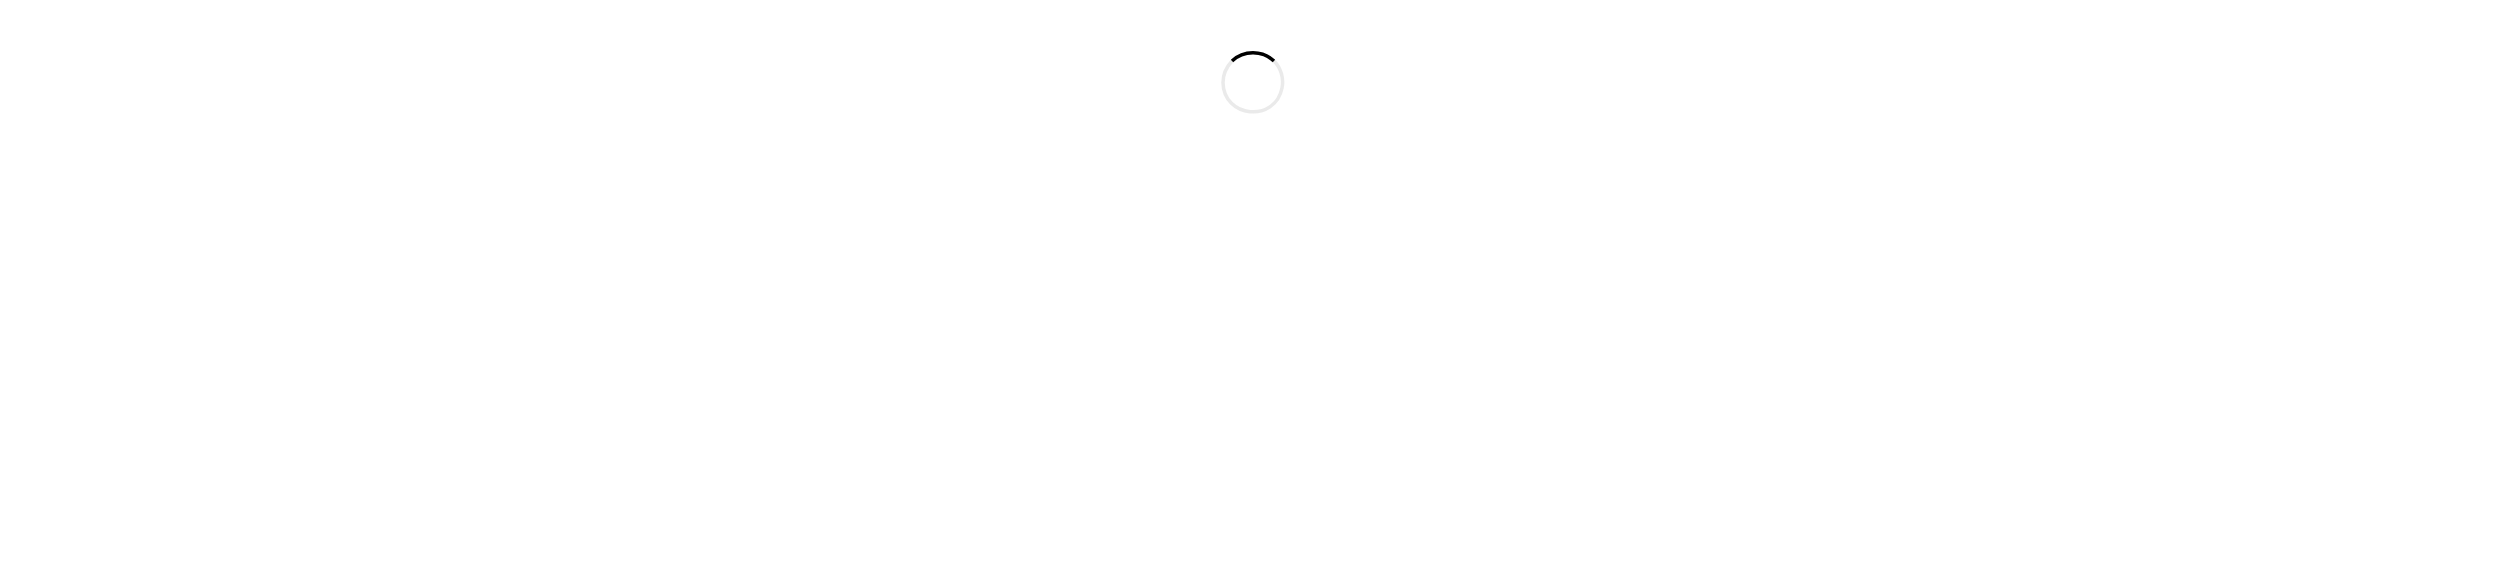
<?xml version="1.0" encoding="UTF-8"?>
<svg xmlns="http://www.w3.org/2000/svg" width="2506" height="576">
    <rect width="100%" height="100%" fill="#FFFFFF"/>
    <path d="M 1232 61 C 1243.5 50 1262.5 50 1274 61" fill="none" stroke="#000000" stroke-width="3.5"/>
    <path d="M 1274 61 C 1281 68 1284 78.5 1282 88 C 1275 123 1223.5 118 1223 82.5 C 1223 74.5 1226.5 67 1232 61" fill="none" stroke="#969696" stroke-opacity="0.2" stroke-width="3.5"/>
</svg>
